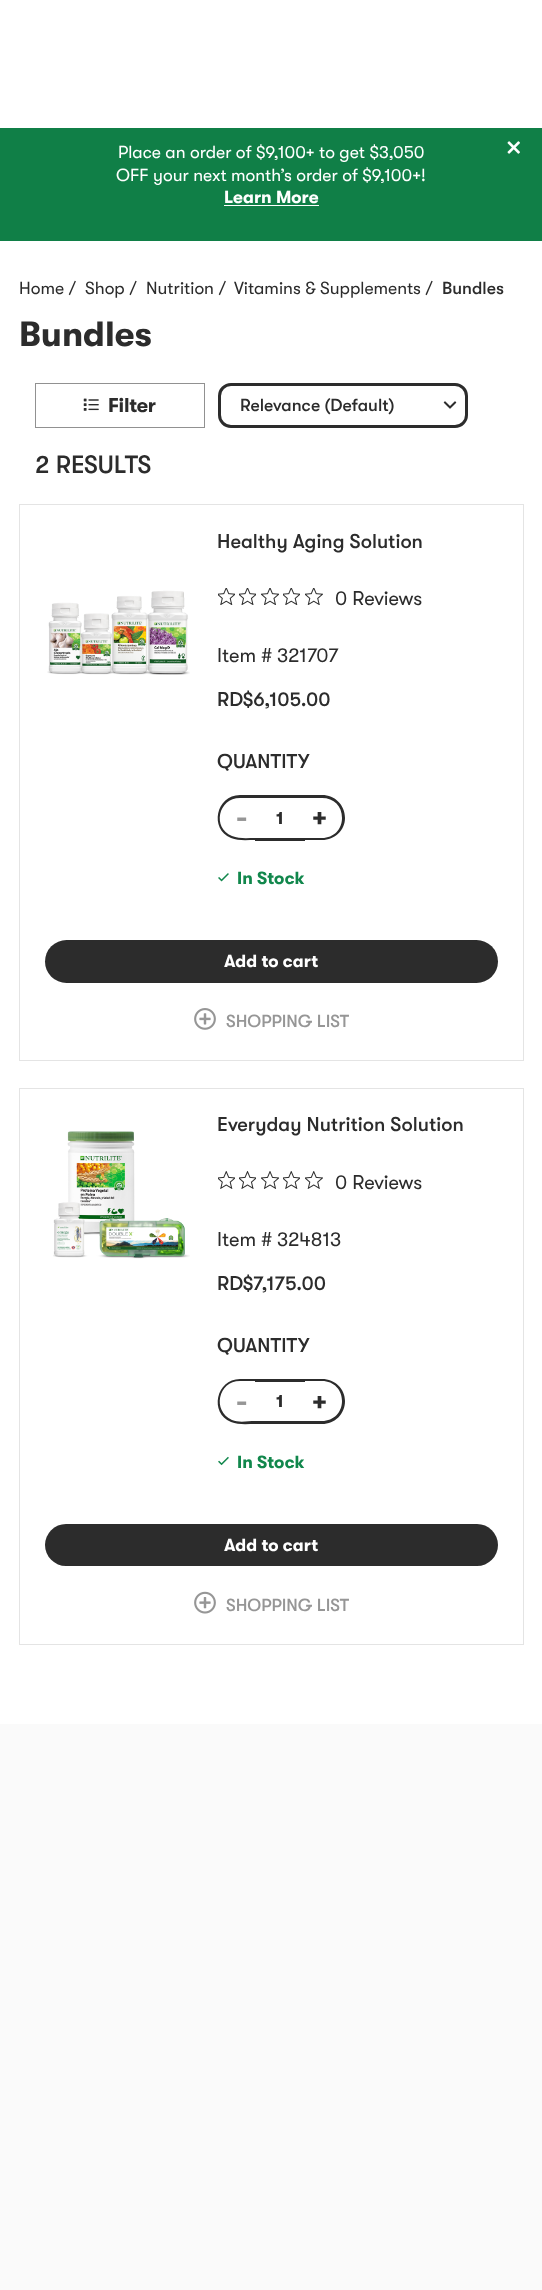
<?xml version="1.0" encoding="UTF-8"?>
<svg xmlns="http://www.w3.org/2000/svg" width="542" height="2290">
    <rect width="100%" height="100%" fill="#FAFAFA"/>
    <rect x="0" y="0" width="542" height="1724" fill="#FFFFFF"/>
    <rect x="0" y="128" width="542" height="113" fill="#107F47"/>
    <text x="118" y="158" font-family="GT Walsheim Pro" font-size="17.5" fill="#FFFFFF">Place an order of $9,100+ to get $3,050</text>
    <text x="116" y="181" font-family="GT Walsheim Pro" font-size="17.5" fill="#FFFFFF">OFF your next month’s order of $9,100+!</text>
    <text x="224" y="203" font-family="GT Walsheim Pro" font-size="17.5" font-weight="700" fill="#FFFFFF">Learn More</text>
    <rect x="224" y="205" width="95" height="1" fill="#FFFFFF"/>
    <image x="507" y="141" width="13" height="13" href="img_01.png"/>
    <text x="19" y="294" font-family="GT Walsheim Pro" font-size="17.5" fill="#2C2C2C">Home /</text>
    <text x="85" y="294" font-family="GT Walsheim Pro" font-size="17.5" fill="#2C2C2C">Shop /</text>
    <text x="146" y="294" font-family="GT Walsheim Pro" font-size="17.5" fill="#2C2C2C">Nutrition /</text>
    <text x="234" y="294" font-family="GT Walsheim Pro" font-size="17.5" fill="#2C2C2C">Vitamins &amp; Supplements /</text>
    <text x="442" y="294" font-family="GT Walsheim Pro" font-size="17.5" font-weight="500" fill="#2C2C2C">Bundles</text>
    <text x="19" y="346" font-family="GT Walsheim Pro" font-size="35" font-weight="700" fill="#2C2C2C">Bundles</text>
    <rect x="35.5" y="383.5" width="169" height="44" fill="none" stroke="#919191"/>
    <image x="83" y="398" width="16" height="13" href="img_02.png"/>
    <text x="108" y="412" font-family="GT Walsheim Pro" font-size="20" font-weight="700" letter-spacing="-0.25" fill="#2C2C2C">Filter</text>
    <rect x="219.5" y="384.5" width="247" height="42" rx="11.5" fill="none" stroke="#2C2C2C" stroke-width="3"/>
    <text x="240" y="411" font-family="GT Walsheim Pro" font-size="17.5" font-weight="500" fill="#2C2C2C">Relevance (Default)</text>
    <image x="443" y="401" width="14" height="8" href="img_03.png"/>
    <text x="35" y="473" font-family="GT Walsheim Pro" font-size="25" font-weight="500" fill="#2C2C2C">2 RESULTS</text>
    <rect x="19.5" y="504.5" width="504" height="556" fill="none" stroke="#E4E4E4"/>
    <image x="47" y="590" width="143" height="85" href="img_04.png"/>
    <text x="217" y="548" font-family="GT Walsheim Pro" font-size="20" font-weight="500" fill="#2C2C2C">Healthy Aging Solution</text>
    <image x="218" y="588" width="17" height="17" href="img_05.png"/>
    <image x="239" y="588" width="17" height="17" href="img_06.png"/>
    <image x="261" y="588" width="18" height="17" href="img_07.png"/>
    <image x="283" y="588" width="17" height="17" href="img_05.png"/>
    <image x="305" y="588" width="18" height="17" href="img_08.png"/>
    <text x="335" y="605" font-family="GT Walsheim Pro" font-size="20" fill="#2C2C2C">0 Reviews</text>
    <text x="217" y="662" font-family="GT Walsheim Pro" font-size="20" fill="#2C2C2C">Item # 321707</text>
    <text x="217" y="706" font-family="GT Walsheim Pro" font-size="20" font-weight="500" fill="#2C2C2C">RD$6,105.00</text>
    <text x="217" y="768" font-family="GT Walsheim Pro" font-size="20" font-weight="500" fill="#2C2C2C">QUANTITY</text>
    <path d="M 240 795 H 255 V 840 C 247 840 238 841 231 838 C 209 829 216 795 240 795 Z M 240 798 H 255 V 838 C 248 838 239 839 232 836 C 212 828 218 798 240 798 Z" fill="#2C2C2C" fill-rule="evenodd"/>
    <text x="236" y="827" font-family="GT Walsheim Pro" font-size="28" font-weight="700" letter-spacing="-0.25" fill="#969696">-</text>
    <rect x="255" y="795" width="50" height="3" fill="#2C2C2C"/>
    <rect x="255" y="838" width="50" height="3" fill="#2C2C2C"/>
    <text x="276" y="824" font-family="GT Walsheim Pro" font-size="17.5" font-weight="700" fill="#2C2C2C">1</text>
    <path d="M 305 795 H 322 C 335 795 345 805 345 818 C 345 830 335 840 322 840 H 305 Z M 305 798 H 322 C 334 798 342 806 342 818 C 342 829 334 838 322 838 H 305 Z" fill="#2C2C2C" fill-rule="evenodd"/>
    <text x="312" y="827" font-family="GT Walsheim Pro" font-size="28" font-weight="700" letter-spacing="-0.25" fill="#2C2C2C">+</text>
    <image x="218" y="873" width="11" height="9" href="img_09.png"/>
    <text x="237" y="884" font-family="GT Walsheim Pro" font-size="17.5" font-weight="700" fill="#11874C">In Stock</text>
    <rect x="45" y="940" width="453" height="43" rx="21.5" fill="#2C2C2C"/>
    <text x="224" y="967" font-family="GT Walsheim Pro" font-size="17.5" font-weight="700" fill="#FFFFFF">Add to cart</text>
    <image x="194" y="1008" width="22" height="22" href="img_10.png"/>
    <text x="226" y="1027" font-family="GT Walsheim Pro" font-size="17.5" font-weight="500" fill="#969696">SHOPPING LIST</text>
    <rect x="19.5" y="1088.5" width="504" height="556" fill="none" stroke="#E4E4E4"/>
    <image x="53" y="1131" width="137" height="128" href="img_11.png"/>
    <text x="217" y="1131" font-family="GT Walsheim Pro" font-size="20" font-weight="500" fill="#2C2C2C">Everyday Nutrition Solution</text>
    <image x="218" y="1171" width="17" height="18" href="img_12.png"/>
    <image x="239" y="1171" width="17" height="18" href="img_13.png"/>
    <image x="261" y="1171" width="18" height="18" href="img_14.png"/>
    <image x="283" y="1171" width="17" height="18" href="img_12.png"/>
    <image x="305" y="1171" width="18" height="18" href="img_15.png"/>
    <text x="335" y="1189" font-family="GT Walsheim Pro" font-size="20" fill="#2C2C2C">0 Reviews</text>
    <text x="217" y="1246" font-family="GT Walsheim Pro" font-size="20" fill="#2C2C2C">Item # 324813</text>
    <text x="217" y="1290" font-family="GT Walsheim Pro" font-size="20" font-weight="500" fill="#2C2C2C">RD$7,175.00</text>
    <text x="217" y="1352" font-family="GT Walsheim Pro" font-size="20" font-weight="500" fill="#2C2C2C">QUANTITY</text>
    <path d="M 240 1379 H 255 V 1424 C 247 1424 238 1425 231 1422 C 209 1413 216 1379 240 1379 Z M 240 1381 H 255 V 1421 C 248 1421 239 1423 232 1420 C 212 1411 218 1381 240 1381 Z" fill="#2C2C2C" fill-rule="evenodd"/>
    <text x="236" y="1411" font-family="GT Walsheim Pro" font-size="28" font-weight="700" letter-spacing="-0.25" fill="#969696">-</text>
    <rect x="255" y="1379" width="50" height="3" fill="#2C2C2C"/>
    <rect x="255" y="1421" width="50" height="3" fill="#2C2C2C"/>
    <text x="276" y="1407" font-family="GT Walsheim Pro" font-size="17.5" font-weight="700" fill="#2C2C2C">1</text>
    <path d="M 305 1379 H 322 C 335 1379 345 1389 345 1401 C 345 1414 335 1424 322 1424 H 305 Z M 305 1381 H 322 C 334 1381 342 1390 342 1401 C 342 1412 334 1421 322 1421 H 305 Z" fill="#2C2C2C" fill-rule="evenodd"/>
    <text x="312" y="1411" font-family="GT Walsheim Pro" font-size="28" font-weight="700" letter-spacing="-0.25" fill="#2C2C2C">+</text>
    <image x="218" y="1456" width="11" height="10" href="img_16.png"/>
    <text x="237" y="1468" font-family="GT Walsheim Pro" font-size="17.5" font-weight="700" fill="#11874C">In Stock</text>
    <rect x="45" y="1524" width="453" height="42" rx="21" fill="#2C2C2C"/>
    <text x="224" y="1551" font-family="GT Walsheim Pro" font-size="17.5" font-weight="700" fill="#FFFFFF">Add to cart</text>
    <image x="194" y="1591" width="22" height="23" href="img_17.png"/>
    <text x="226" y="1611" font-family="GT Walsheim Pro" font-size="17.5" font-weight="500" fill="#969696">SHOPPING LIST</text>
</svg>
